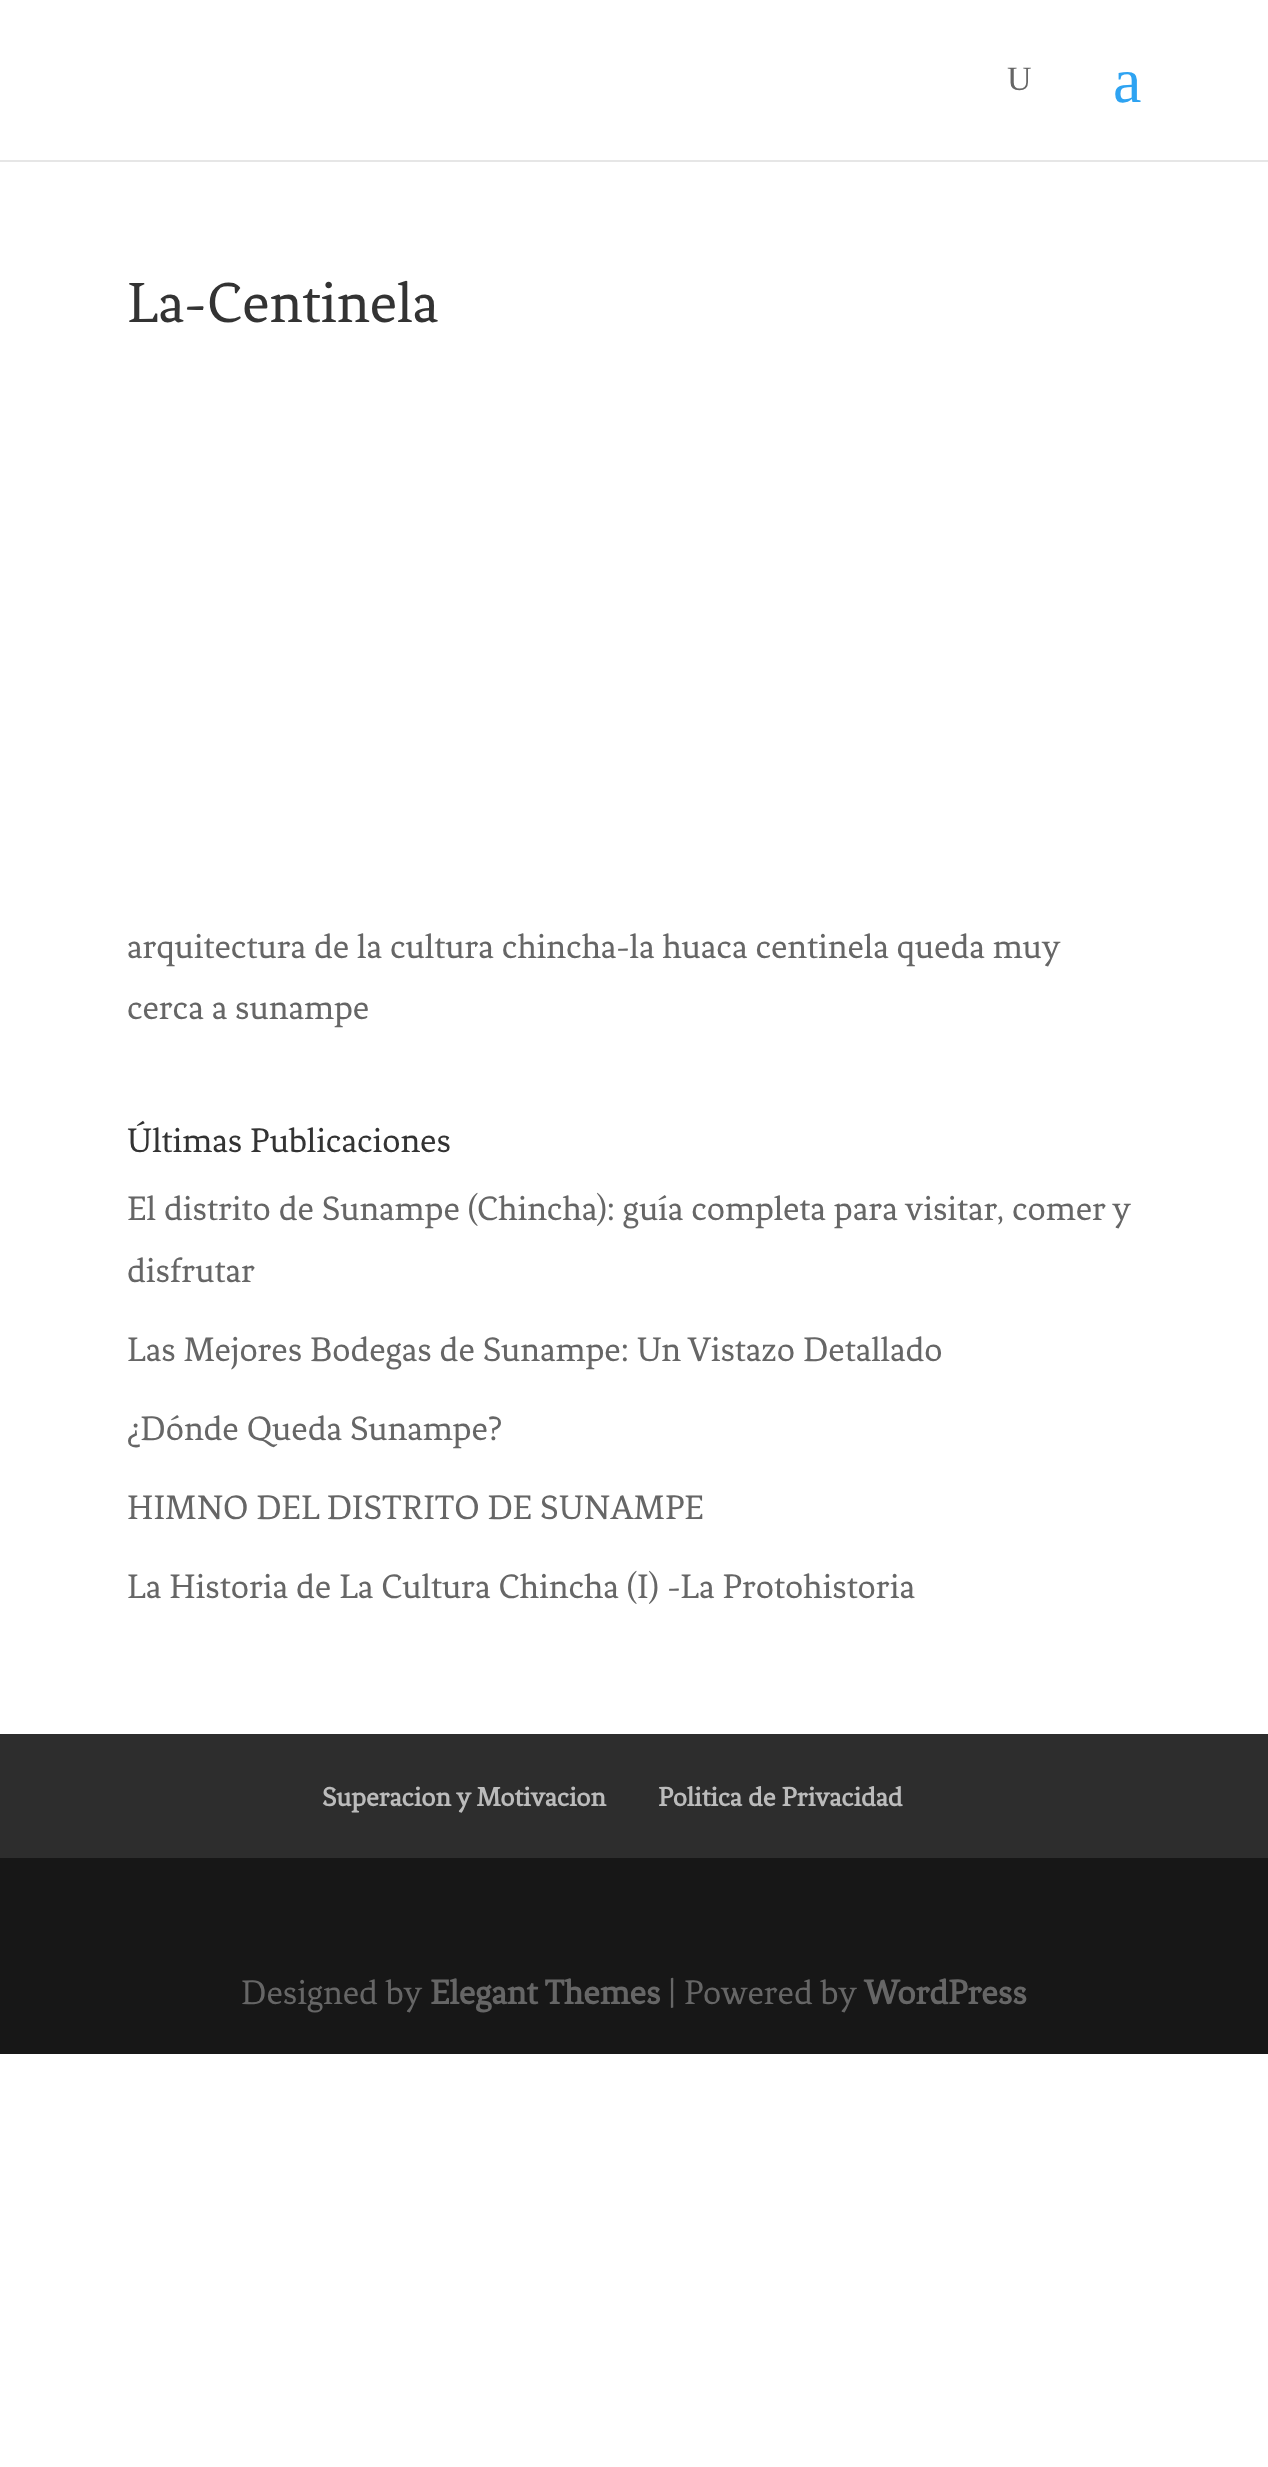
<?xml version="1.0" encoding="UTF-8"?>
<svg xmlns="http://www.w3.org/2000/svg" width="1268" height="2467">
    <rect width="100%" height="100%" fill="#FFFFFF"/>
    <rect x="0" y="160" width="1268" height="2" fill="#E6E6E6"/>
    <text x="1007" y="90" font-family="Liberation Serif" font-size="34" fill="#666666">U</text>
    <text x="1113" y="102" font-family="Liberation Serif" font-size="64" fill="#2EA3F2">a</text>
    <text x="127" y="322" font-family="Fenix" font-size="60" fill="#333333">La-Centinela</text>
    <text font-family="Fenix" font-size="36" fill="#666666">
        <tspan x="127" y="958">arquitectura de la cultura chincha-la huaca centinela queda muy</tspan>
        <tspan x="127" y="1019">cerca a sunampe</tspan>
    </text>
    <text x="127" y="1152" font-family="Fenix" font-size="36" fill="#333333">Últimas Publicaciones</text>
    <text font-family="Fenix" font-size="36" fill="#666666">
        <tspan x="127" y="1220">El distrito de Sunampe (Chincha): guía completa para visitar, comer y</tspan>
        <tspan x="127" y="1282">disfrutar</tspan>
    </text>
    <text x="127" y="1361" font-family="Fenix" font-size="36" fill="#666666">Las Mejores Bodegas de Sunampe: Un Vistazo Detallado</text>
    <text x="127" y="1440" font-family="Fenix" font-size="36" fill="#666666">¿Dónde Queda Sunampe?</text>
    <text x="127" y="1519" font-family="Fenix" font-size="36" fill="#666666">HIMNO DEL DISTRITO DE SUNAMPE</text>
    <text x="127" y="1598" font-family="Fenix" font-size="36" fill="#666666">La Historia de La Cultura Chincha (I) -La Protohistoria</text>
    <rect x="0" y="1734" width="1268" height="124" fill="#2D2D2D"/>
    <text x="322" y="1806" font-family="Fenix" font-size="28" font-weight="700" fill="#BBBBBB">Superacion y Motivacion</text>
    <text x="658" y="1806" font-family="Fenix" font-size="28" font-weight="700" fill="#BBBBBB">Politica de Privacidad</text>
    <rect x="0" y="1858" width="1268" height="196" fill="#171717"/>
    <text x="241" y="2004" font-family="Fenix" font-size="36" fill="#666666">Designed by</text>
    <text x="430" y="2004" font-family="Fenix" font-size="36" font-weight="700" fill="#666666">Elegant Themes</text>
    <text x="668" y="2004" font-family="Fenix" font-size="36" fill="#666666">| Powered by</text>
    <text x="864" y="2004" font-family="Fenix" font-size="36" font-weight="700" fill="#666666">WordPress</text>
</svg>
